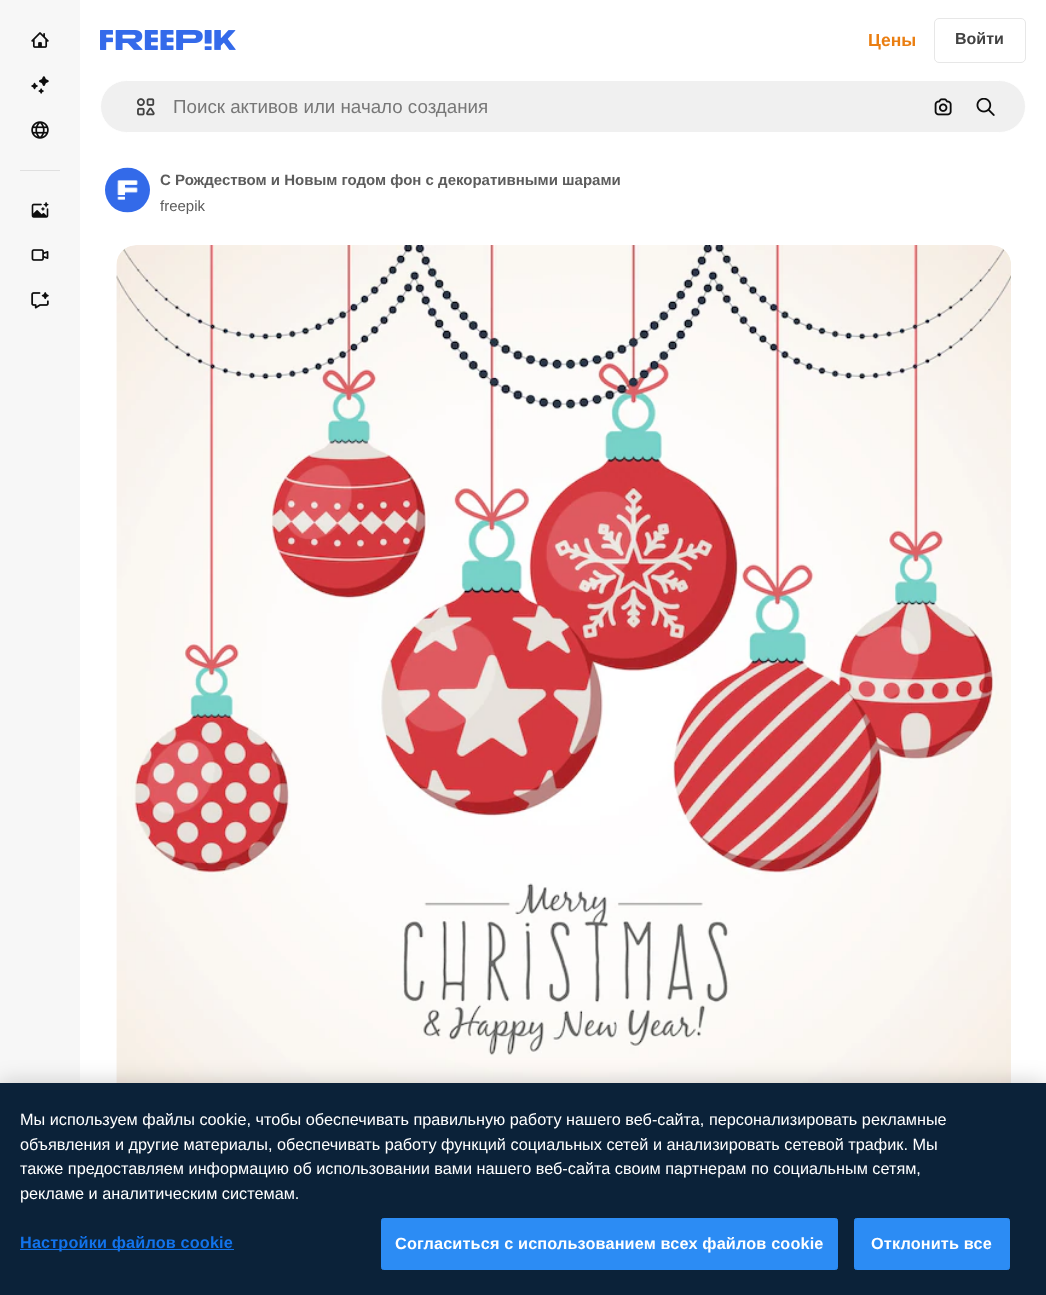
<?xml version="1.0" encoding="UTF-8"?>
<svg xmlns="http://www.w3.org/2000/svg" width="1046" height="1295">
    <defs>
        <filter id="blur1" x="-50%" y="-200%" width="200%" height="500%"><feGaussianBlur stdDeviation="11"/></filter>
    </defs>
    <rect width="100%" height="100%" fill="#FFFFFF"/>
    <rect x="0" y="0" width="80" height="1083" fill="#F7F7F7"/>
    <image x="31" y="32" width="18" height="16" href="img_01.png"/>
    <image x="31" y="76" width="18" height="18" href="img_02.png"/>
    <image x="31" y="121" width="18" height="18" href="img_03.png"/>
    <rect x="20" y="170" width="40" height="1" fill="#E0E0E0"/>
    <image x="31" y="202" width="18" height="16" href="img_04.png"/>
    <image x="31" y="249" width="18" height="12" href="img_05.png"/>
    <image x="31" y="292" width="18" height="17" href="img_06.png"/>
    <image x="100" y="30" width="136" height="20" href="img_07.png"/>
    <text x="868" y="46" font-family="Liberation Sans" font-size="17.5" font-weight="700" fill="#EA7E11">Цены</text>
    <rect x="934.5" y="18.5" width="91" height="44" rx="4.5" fill="none" stroke="#E7E7E7"/>
    <text x="955" y="44" font-family="Liberation Sans" font-size="16" font-weight="700" fill="#424242">Войти</text>
    <rect x="100.5" y="80.5" width="925" height="52" rx="26" fill="#F0F0F0" stroke="#FFFFFF"/>
    <image x="136" y="98" width="19" height="18" href="img_08.png"/>
    <text x="173" y="113" font-family="Liberation Sans" font-size="18.75" fill="#777777">Поиск активов или начало создания</text>
    <image x="934" y="98" width="18" height="18" href="img_09.png"/>
    <image x="976" y="98" width="19" height="18" href="img_10.png"/>
    <image x="105" y="167" width="45" height="46" href="img_11.png"/>
    <text x="160" y="185" font-family="Liberation Sans" font-size="15" font-weight="700" fill="#5C5C5C">С Рождеством и Новым годом фон с декоративными шарами</text>
    <text x="160" y="211" font-family="Liberation Sans" font-size="15" fill="#5C5C5C">freepik</text>
    <image x="116" y="245" width="895" height="838" href="img_12.png"/>
    <rect x="0" y="1083" width="1046" height="212" fill="#000000" fill-opacity="0.2" filter="url(#blur1)"/>
    <rect x="0" y="1083" width="1046" height="212" fill="#0B2239"/>
    <text font-family="Liberation Sans" font-size="16.25" fill="#FFFFFF">
        <tspan x="20" y="1125">Мы используем файлы cookie, чтобы обеспечивать правильную работу нашего веб-сайта, персонализировать рекламные</tspan>
        <tspan x="20" y="1150">объявления и другие материалы, обеспечивать работу функций социальных сетей и анализировать сетевой трафик. Мы</tspan>
        <tspan x="20" y="1174">также предоставляем информацию об использовании вами нашего веб-сайта своим партнерам по социальным сетям,</tspan>
        <tspan x="20" y="1199">рекламе и аналитическим системам.</tspan>
    </text>
    <rect x="20" y="1249" width="214" height="1" fill="#1273EB"/>
    <text x="20" y="1248" font-family="Liberation Sans" font-size="16.25" font-weight="700" letter-spacing="0.15" fill="#1273EB">Настройки файлов cookie</text>
    <rect x="381.5" y="1218.5" width="456" height="51" rx="2" fill="#2C8CF4" stroke="#2C8CF4"/>
    <text x="395" y="1249" font-family="Liberation Sans" font-size="16.25" font-weight="700" letter-spacing="0.15" fill="#FFFFFF">Согласиться с использованием всех файлов cookie</text>
    <rect x="854.5" y="1218.5" width="155" height="51" rx="2" fill="#2C8CF4" stroke="#2C8CF4"/>
    <text x="871" y="1249" font-family="Liberation Sans" font-size="16.25" font-weight="700" letter-spacing="0.15" fill="#FFFFFF">Отклонить все</text>
</svg>
